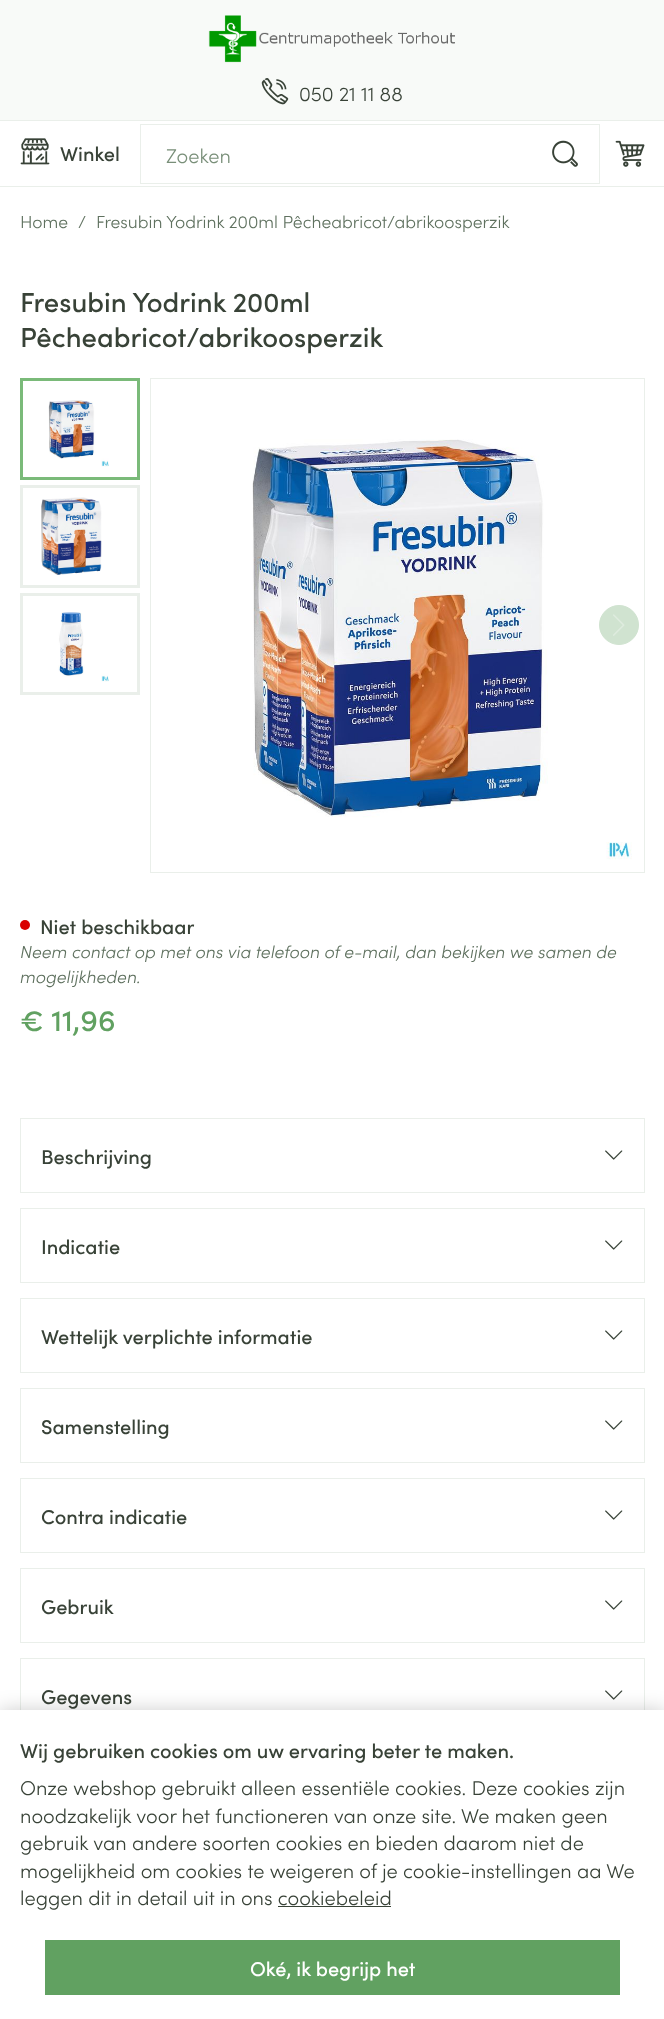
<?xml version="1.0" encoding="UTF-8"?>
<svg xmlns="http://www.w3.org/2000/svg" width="664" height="2019">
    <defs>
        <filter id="blur1" x="-50%" y="-200%" width="200%" height="500%"><feGaussianBlur stdDeviation="9.5"/></filter>
    </defs>
    <rect width="100%" height="100%" fill="#FFFFFF"/>
    <rect x="0" y="0" width="664" height="120" fill="#F8FAF8"/>
    <image x="208" y="15" width="247" height="48" href="img_01.png"/>
    <image x="261" y="78" width="28" height="27" href="img_02.png"/>
    <text x="299" y="101" font-family="Sofia" font-size="20" font-weight="300" fill="#384237">050 21 11 88</text>
    <rect x="0" y="120" width="664" height="1" fill="#EAEFEA"/>
    <rect x="0" y="186" width="664" height="1" fill="#EAEFEA"/>
    <image x="20" y="138" width="30" height="27" href="img_03.png"/>
    <text x="60" y="161" font-family="Sofia" font-size="20" font-weight="500" fill="#384237">Winkel</text>
    <rect x="140.5" y="124.5" width="459" height="59" fill="none" stroke="#EAEFEA"/>
    <text x="166" y="163" font-family="Sofia" font-size="20" font-weight="300" fill="#798F79">Zoeken</text>
    <image x="552" y="140" width="26" height="27" href="img_04.png"/>
    <image x="615" y="140" width="30" height="27" href="img_05.png"/>
    <text x="20" y="228" font-family="Sofia" font-size="17.5" font-weight="300" fill="#5F715F">Home</text>
    <text x="78" y="228" font-family="Sofia" font-size="17.5" font-weight="300" fill="#5F715F">/</text>
    <text x="96" y="228" font-family="Sofia" font-size="17.5" font-weight="300" fill="#5F715F">Fresubin Yodrink 200ml Pêcheabricot/abrikoosperzik</text>
    <text font-family="Sofia" font-size="27.5" font-weight="500" fill="#384237">
        <tspan x="20" y="312">Fresubin Yodrink 200ml</tspan>
        <tspan x="20" y="347">Pêcheabricot/abrikoosperzik</tspan>
    </text>
    <rect x="21.5" y="379.5" width="117" height="99" fill="none" stroke="#7ABA79" stroke-width="3"/>
    <image x="48" y="400" width="61" height="67" href="img_06.png"/>
    <rect x="21.5" y="486.5" width="117" height="100" fill="none" stroke="#EAEFEA" stroke-width="3"/>
    <image x="41" y="497" width="61" height="78" href="img_07.png"/>
    <rect x="21.5" y="594.5" width="117" height="99" fill="none" stroke="#EAEFEA" stroke-width="3"/>
    <image x="58" y="612" width="51" height="70" href="img_08.png"/>
    <rect x="150.5" y="378.5" width="494" height="494" fill="none" stroke="#EAEFEA"/>
    <image x="252" y="439" width="380" height="421" href="img_09.png"/>
    <circle cx="619" cy="625" r="19.5" fill="#D0E3D0" stroke="#D0E3D0"/>
    <image x="613" y="614" width="12" height="22" href="img_10.png"/>
    <circle cx="25" cy="925" r="5" fill="#D90000"/>
    <text x="40" y="934" font-family="Sofia" font-size="20" font-weight="500" fill="#384237">Niet beschikbaar</text>
    <text font-family="Sofia" font-size="17.5" font-weight="300" font-style="italic" fill="#5F715F">
        <tspan x="20" y="958">Neem contact op met ons via telefoon of e-mail, dan bekijken we samen de</tspan>
        <tspan x="20" y="983">mogelijkheden.</tspan>
    </text>
    <text x="20" y="1031" font-family="Sofia" font-size="30" font-weight="500" fill="#61A161">€ 11,96</text>
    <rect x="20.5" y="1118.5" width="624" height="74" fill="none" stroke="#EAEFEA"/>
    <text x="41" y="1164" font-family="Sofia" font-size="20" font-weight="500" fill="#384237">Beschrijving</text>
    <image x="605" y="1150" width="18" height="10" href="img_11.png"/>
    <rect x="20.5" y="1208.5" width="624" height="74" fill="none" stroke="#EAEFEA"/>
    <text x="41" y="1254" font-family="Sofia" font-size="20" font-weight="500" fill="#384237">Indicatie</text>
    <image x="605" y="1240" width="18" height="10" href="img_11.png"/>
    <rect x="20.5" y="1298.5" width="624" height="74" fill="none" stroke="#EAEFEA"/>
    <text x="41" y="1344" font-family="Sofia" font-size="20" font-weight="500" fill="#384237">Wettelijk verplichte informatie</text>
    <image x="605" y="1330" width="18" height="10" href="img_11.png"/>
    <rect x="20.5" y="1388.5" width="624" height="74" fill="none" stroke="#EAEFEA"/>
    <text x="41" y="1434" font-family="Sofia" font-size="20" font-weight="500" fill="#384237">Samenstelling</text>
    <image x="605" y="1420" width="18" height="10" href="img_11.png"/>
    <rect x="20.5" y="1478.5" width="624" height="74" fill="none" stroke="#EAEFEA"/>
    <text x="41" y="1524" font-family="Sofia" font-size="20" font-weight="500" fill="#384237">Contra indicatie</text>
    <image x="605" y="1510" width="18" height="10" href="img_11.png"/>
    <rect x="20.5" y="1568.5" width="624" height="74" fill="none" stroke="#EAEFEA"/>
    <text x="41" y="1614" font-family="Sofia" font-size="20" font-weight="500" fill="#384237">Gebruik</text>
    <image x="605" y="1600" width="18" height="10" href="img_11.png"/>
    <rect x="20.5" y="1658.5" width="624" height="74" fill="none" stroke="#EAEFEA"/>
    <text x="41" y="1704" font-family="Sofia" font-size="20" font-weight="500" fill="#384237">Gegevens</text>
    <image x="605" y="1690" width="18" height="10" href="img_11.png"/>
    <rect x="0" y="1710" width="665" height="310" fill="#000000" fill-opacity="0.2" filter="url(#blur1)"/>
    <rect x="0" y="1710" width="664" height="309" fill="#FFFFFF"/>
    <text x="20" y="1758" font-family="Sofia" font-size="20" font-weight="500" fill="#384237">Wij gebruiken cookies om uw ervaring beter te maken.</text>
    <text font-family="Sofia" font-size="20" font-weight="300" fill="#384237">
        <tspan x="20" y="1795">Onze webshop gebruikt alleen essentiële cookies. Deze cookies zijn</tspan>
        <tspan x="20" y="1823">noodzakelijk voor het functioneren van onze site. We maken geen</tspan>
        <tspan x="20" y="1850">gebruik van andere soorten cookies en bieden daarom niet de</tspan>
        <tspan x="20" y="1878">mogelijkheid om cookies te weigeren of je cookie-instellingen aa We</tspan>
        <tspan x="20" y="1905">leggen dit in detail uit in ons cookiebeleid</tspan>
    </text>
    <rect x="278" y="1906" width="113" height="1" fill="#384237"/>
    <rect x="45" y="1940" width="575" height="55" fill="#61A161"/>
    <text x="250" y="1976" font-family="Sofia" font-size="20" font-weight="500" fill="#FFFFFF">Oké, ik begrijp het</text>
</svg>
